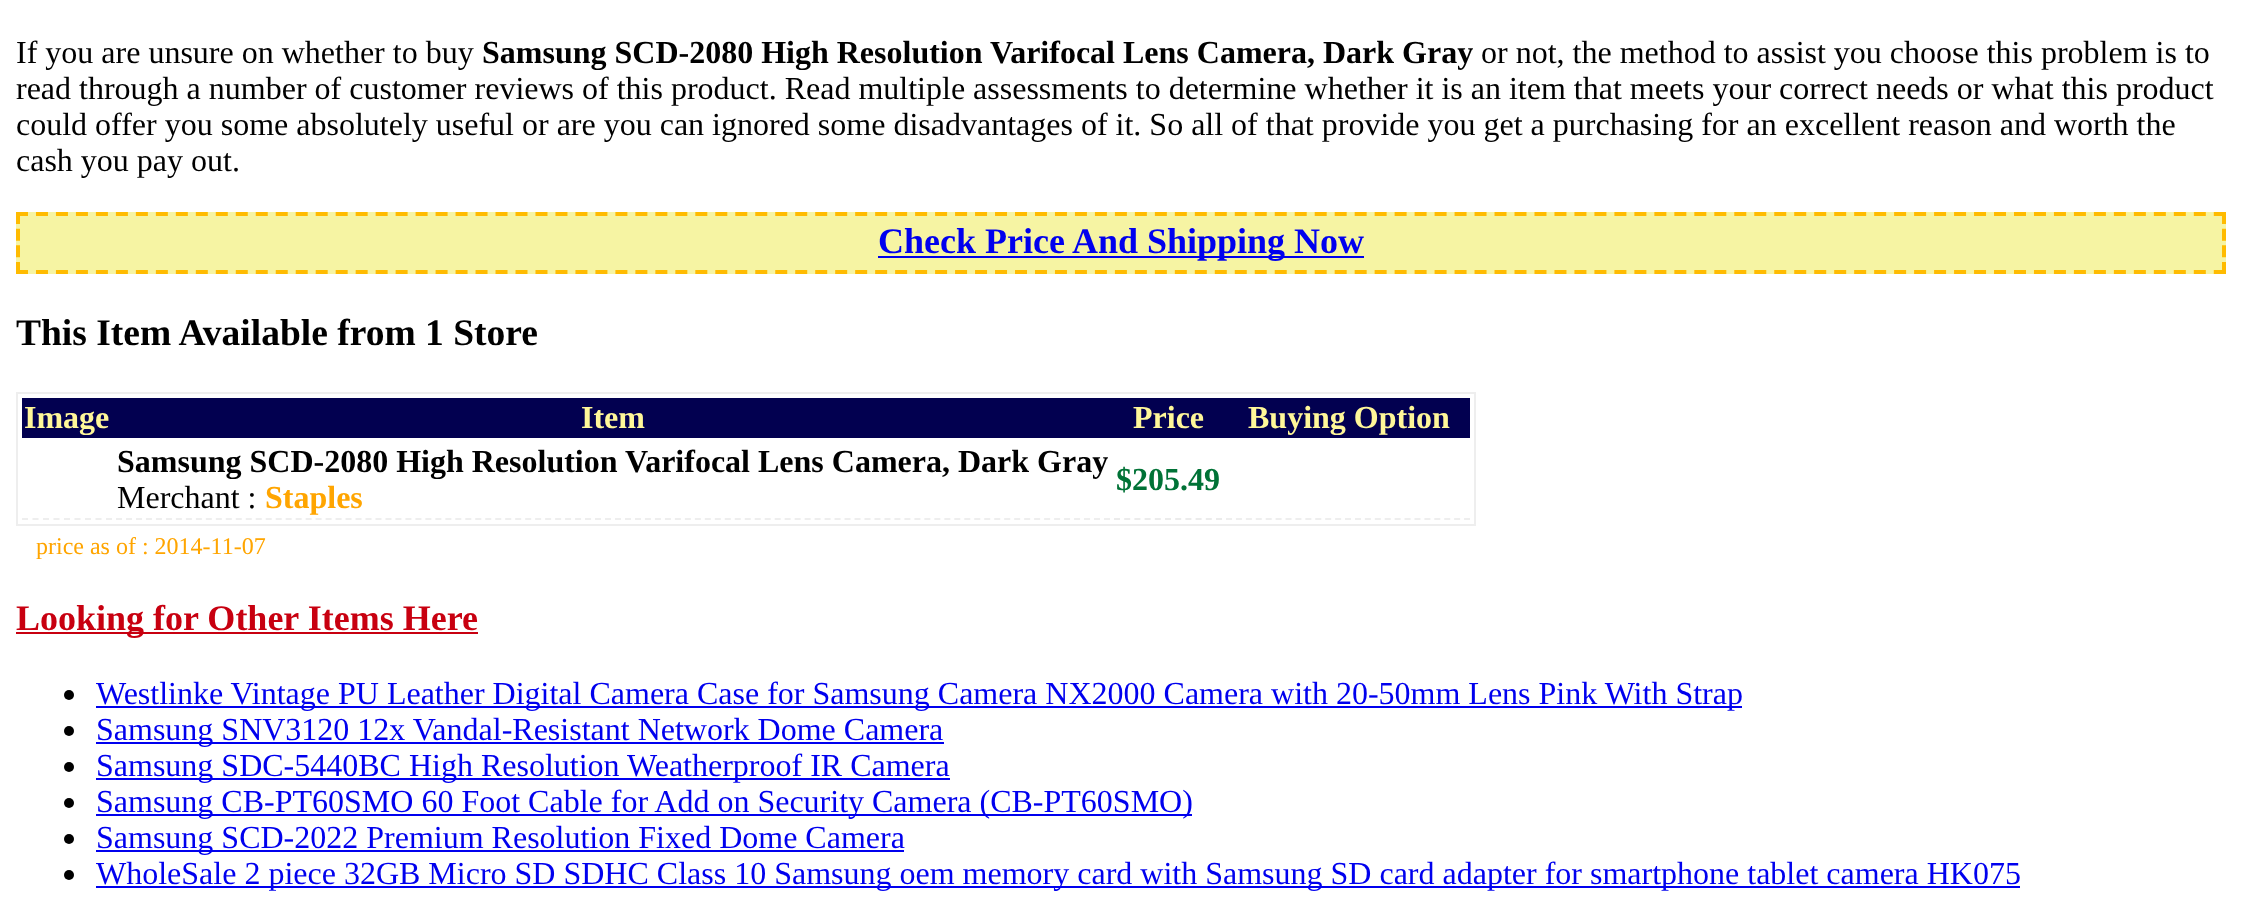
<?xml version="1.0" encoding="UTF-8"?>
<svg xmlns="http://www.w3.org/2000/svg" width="2241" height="905">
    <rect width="100%" height="100%" fill="#FFFFFF"/>
    <text x="16" y="63" font-family="Liberation Serif" font-size="32" fill="#000000">If you are unsure on whether to buy</text>
    <text x="482" y="63" font-family="Liberation Serif" font-size="32" font-weight="700" fill="#000000">Samsung SCD-2080 High Resolution Varifocal Lens Camera, Dark Gray</text>
    <text x="1481" y="63" font-family="Liberation Serif" font-size="32" fill="#000000">or not, the method to assist you choose this problem is to</text>
    <text font-family="Liberation Serif" font-size="32" fill="#000000">
        <tspan x="16" y="99">read through a number of customer reviews of this product. Read multiple assessments to determine whether it is an item that meets your correct needs or what this product</tspan>
        <tspan x="16" y="135">could offer you some absolutely useful or are you can ignored some disadvantages of it. So all of that provide you get a purchasing for an excellent reason and worth the</tspan>
        <tspan x="16" y="171">cash you pay out.</tspan>
    </text>
    <rect x="16" y="212" width="2210" height="62" fill="#F6F4A3"/>
    <path d="M 16 214 H 2226" fill="none" stroke="#FFBB00" stroke-width="4" stroke-dasharray="12 7.98"/>
    <path d="M 2224 212 V 274" fill="none" stroke="#FFBB00" stroke-width="4" stroke-dasharray="12 4.66"/>
    <path d="M 16 272 H 2226" fill="none" stroke="#FFBB00" stroke-width="4" stroke-dasharray="12 7.98"/>
    <path d="M 18 212 V 274" fill="none" stroke="#FFBB00" stroke-width="4" stroke-dasharray="12 4.66"/>
    <rect x="878" y="256" width="486" height="2" fill="#0000EE"/>
    <text x="878" y="253" font-family="Liberation Serif" font-size="36" font-weight="700" fill="#0000EE">Check Price And Shipping Now</text>
    <text x="16" y="345" font-family="Liberation Serif" font-size="37.5" font-weight="700" fill="#000000">This Item Available from 1 Store</text>
    <rect x="17" y="393" width="1458" height="132" fill="none" stroke="#EEEEEE" stroke-width="2"/>
    <rect x="22" y="398" width="1448" height="40" fill="#020050"/>
    <text x="24" y="428" font-family="Liberation Serif" font-size="32" font-weight="700" fill="#FFF799">Image</text>
    <text x="581" y="428" font-family="Liberation Serif" font-size="32" font-weight="700" fill="#FFF799">Item</text>
    <text x="1133" y="428" font-family="Liberation Serif" font-size="32" font-weight="700" fill="#FFF799">Price</text>
    <text x="1248" y="428" font-family="Liberation Serif" font-size="32" font-weight="700" fill="#FFF799">Buying Option</text>
    <path d="M 116 519 H 1110" fill="none" stroke="#EEEEEE" stroke-width="2" stroke-dasharray="6 3.98"/>
    <text x="117" y="472" font-family="Liberation Serif" font-size="32" font-weight="700" fill="#000000">Samsung SCD-2080 High Resolution Varifocal Lens Camera, Dark Gray</text>
    <text x="117" y="508" font-family="Liberation Serif" font-size="32" fill="#000000">Merchant :</text>
    <text x="265" y="508" font-family="Liberation Serif" font-size="32" font-weight="700" fill="#FFA500">Staples</text>
    <path d="M 1114 519 H 1222" fill="none" stroke="#EBEBEB" stroke-width="2" stroke-dasharray="6 4.2"/>
    <text x="1116" y="490" font-family="Liberation Serif" font-size="32" font-weight="700" fill="#007236">$205.49</text>
    <path d="M 22 519 H 112" fill="none" stroke="#EEEEEE" stroke-width="2" stroke-dasharray="6 4.5"/>
    <path d="M 1226 519 H 1470" fill="none" stroke="#EEEEEE" stroke-width="2" stroke-dasharray="6 3.92"/>
    <text x="36" y="554" font-family="Liberation Serif" font-size="24" fill="#FFA500">price as of : 2014-11-07</text>
    <rect x="16" y="632" width="462" height="2" fill="#C80010"/>
    <text x="16" y="630" font-family="Liberation Serif" font-size="36" font-weight="700" fill="#C80010">Looking for Other Items Here</text>
    <circle cx="69" cy="695" r="5" fill="#000000"/>
    <rect x="96" y="706" width="1646" height="2" fill="#0000EE"/>
    <text x="96" y="704" font-family="Liberation Serif" font-size="32" fill="#0000EE">Westlinke Vintage PU Leather Digital Camera Case for Samsung Camera NX2000 Camera with 20-50mm Lens Pink With Strap</text>
    <circle cx="69" cy="731" r="5" fill="#000000"/>
    <rect x="96" y="742" width="848" height="2" fill="#0000EE"/>
    <text x="96" y="740" font-family="Liberation Serif" font-size="32" fill="#0000EE">Samsung SNV3120 12x Vandal-Resistant Network Dome Camera</text>
    <circle cx="69" cy="767" r="5" fill="#000000"/>
    <rect x="96" y="778" width="854" height="2" fill="#0000EE"/>
    <text x="96" y="776" font-family="Liberation Serif" font-size="32" fill="#0000EE">Samsung SDC-5440BC High Resolution Weatherproof IR Camera</text>
    <circle cx="69" cy="803" r="5" fill="#000000"/>
    <rect x="96" y="814" width="1096" height="2" fill="#0000EE"/>
    <text x="96" y="812" font-family="Liberation Serif" font-size="32" fill="#0000EE">Samsung CB-PT60SMO 60 Foot Cable for Add on Security Camera (CB-PT60SMO)</text>
    <circle cx="69" cy="839" r="5" fill="#000000"/>
    <rect x="96" y="850" width="808" height="2" fill="#0000EE"/>
    <text x="96" y="848" font-family="Liberation Serif" font-size="32" fill="#0000EE">Samsung SCD-2022 Premium Resolution Fixed Dome Camera</text>
    <circle cx="69" cy="875" r="5" fill="#000000"/>
    <rect x="96" y="886" width="1924" height="2" fill="#0000EE"/>
    <text x="96" y="884" font-family="Liberation Serif" font-size="32" fill="#0000EE">WholeSale 2 piece 32GB Micro SD SDHC Class 10 Samsung oem memory card with Samsung SD card adapter for smartphone tablet camera HK075</text>
</svg>
